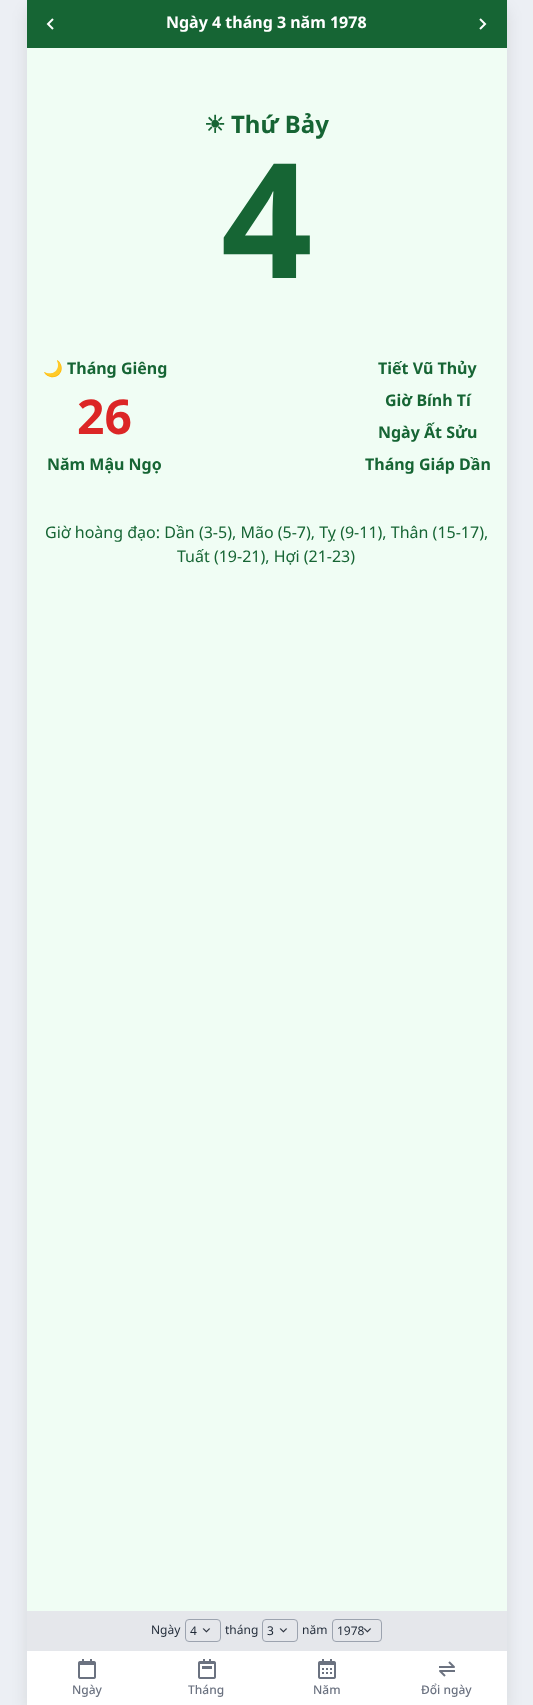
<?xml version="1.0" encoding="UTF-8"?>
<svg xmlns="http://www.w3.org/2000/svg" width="533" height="1705">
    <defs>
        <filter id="blur1" x="-50%" y="-200%" width="200%" height="500%"><feGaussianBlur stdDeviation="8"/></filter>
    </defs>
    <rect width="100%" height="100%" fill="#ECEFF4"/>
    <rect x="27" y="8" width="480" height="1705" rx="8" fill="#000000" fill-opacity="0.1" filter="url(#blur1)"/>
    <rect x="27" y="0" width="480" height="48" fill="#166534"/>
    <image x="46" y="18" width="8" height="12" href="img_01.png"/>
    <text x="166" y="28" font-family="Noto Sans" font-size="16" font-weight="700" fill="#FFFFFF">Ngày 4 tháng 3 năm 1978</text>
    <image x="479" y="18" width="8" height="12" href="img_02.png"/>
    <rect x="27" y="48" width="480" height="1563" fill="#F0FDF4"/>
    <text x="204" y="133" font-family="DejaVu Sans" font-size="24" font-weight="700" fill="#166534">☀</text>
    <text x="231" y="133" font-family="Noto Sans" font-size="24" font-weight="700" fill="#166534">Thứ Bảy</text>
    <text x="221" y="278" font-family="Noto Sans" font-size="160" font-weight="700" fill="#166534">4</text>
    <text x="43" y="374" font-family="Noto Color Emoji" font-size="16" font-weight="700" fill="#166534">🌙</text>
    <text x="67" y="374" font-family="Noto Sans" font-size="16" font-weight="700" fill="#166534">Tháng Giêng</text>
    <text x="77" y="434" font-family="Noto Sans" font-size="48" font-weight="700" fill="#DC2626">26</text>
    <text x="47" y="470" font-family="Noto Sans" font-size="16" font-weight="700" fill="#166534">Năm Mậu Ngọ</text>
    <text x="378" y="374" font-family="Noto Sans" font-size="16" font-weight="700" fill="#166534">Tiết Vũ Thủy</text>
    <text x="385" y="406" font-family="Noto Sans" font-size="16" font-weight="700" fill="#166534">Giờ Bính Tí</text>
    <text x="378" y="438" font-family="Noto Sans" font-size="16" font-weight="700" fill="#166534">Ngày Ất Sửu</text>
    <text x="365" y="470" font-family="Noto Sans" font-size="16" font-weight="700" fill="#166534">Tháng Giáp Dần</text>
    <text x="45" y="538" font-family="Noto Sans" font-size="16" fill="#166534">Giờ hoàng đạo: Dần (3-5), Mão (5-7), Tỵ (9-11), Thân (15-17),</text>
    <text x="177" y="562" font-family="Noto Sans" font-size="16" fill="#166534">Tuất (19-21), Hợi (21-23)</text>
    <rect x="27" y="1611" width="480" height="40" fill="#E5E7EB"/>
    <text x="151" y="1634" font-family="Noto Sans" font-size="12" fill="#1F2937">Ngày</text>
    <image x="202" y="1628" width="9" height="5" href="img_03.png"/>
    <rect x="185.5" y="1619.5" width="35" height="22" rx="3.5" fill="none" stroke="#9CA3AF"/>
    <text x="190" y="1635" font-family="Noto Sans" font-size="12" fill="#1F2937">4</text>
    <text x="225" y="1634" font-family="Noto Sans" font-size="12" fill="#1F2937">tháng</text>
    <image x="279" y="1628" width="9" height="5" href="img_03.png"/>
    <rect x="262.5" y="1619.5" width="35" height="22" rx="3.5" fill="none" stroke="#9CA3AF"/>
    <text x="267" y="1635" font-family="Noto Sans" font-size="12" fill="#1F2937">3</text>
    <text x="302" y="1634" font-family="Noto Sans" font-size="12" fill="#1F2937">năm</text>
    <image x="363" y="1628" width="9" height="5" href="img_03.png"/>
    <rect x="332.5" y="1619.5" width="49" height="22" rx="3.5" fill="none" stroke="#9CA3AF"/>
    <text x="337" y="1635" font-family="Noto Sans" font-size="12" fill="#1F2937">1978</text>
    <rect x="27" y="1651" width="480" height="54" fill="#FFFFFF"/>
    <image x="78" y="1659" width="18" height="20" href="img_04.png"/>
    <text x="72" y="1694" font-family="Noto Sans" font-size="12" font-weight="500" fill="#6B7280">Ngày</text>
    <image x="198" y="1659" width="18" height="20" href="img_05.png"/>
    <text x="188" y="1694" font-family="Noto Sans" font-size="12" font-weight="500" fill="#6B7280">Tháng</text>
    <image x="318" y="1659" width="18" height="20" href="img_06.png"/>
    <text x="313" y="1694" font-family="Noto Sans" font-size="12" font-weight="500" fill="#6B7280">Năm</text>
    <image x="439" y="1661" width="16" height="16" href="img_07.png"/>
    <text x="421" y="1694" font-family="Noto Sans" font-size="12" font-weight="500" fill="#6B7280">Đổi ngày</text>
</svg>
